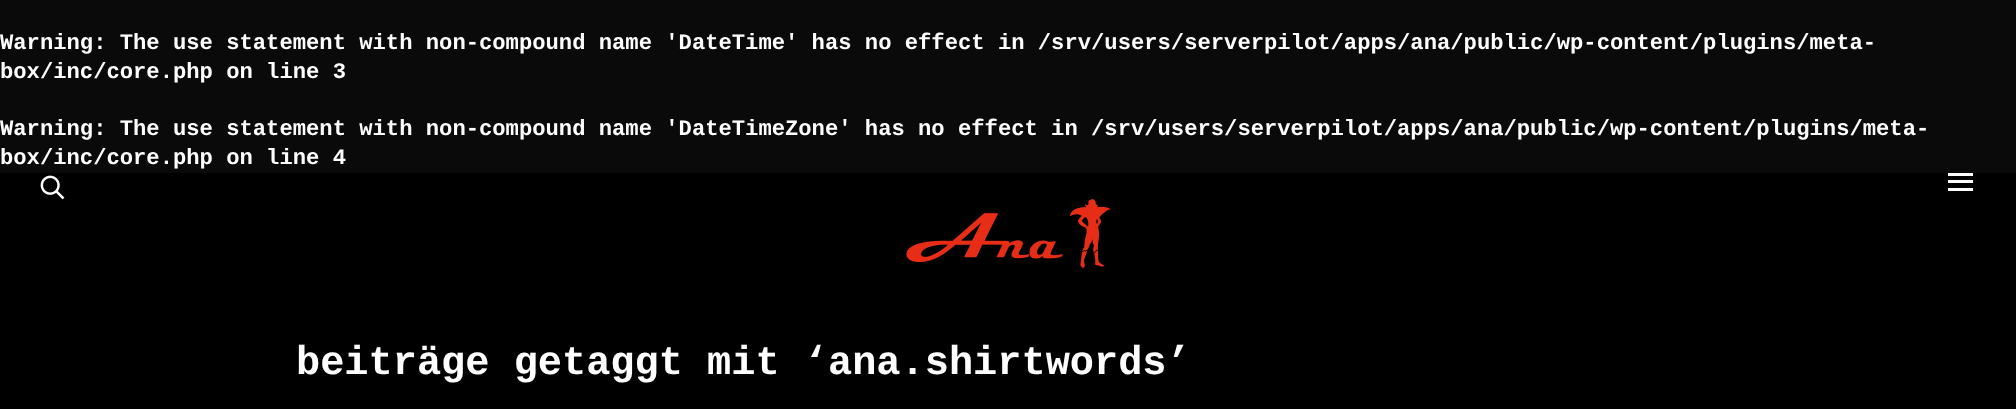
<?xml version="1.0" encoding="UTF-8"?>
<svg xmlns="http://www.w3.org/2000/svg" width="2016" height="409">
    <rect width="100%" height="100%" fill="#0A0A0A"/>
    <text font-family="Liberation Mono" font-size="22.18" font-weight="700" fill="#FFFFFF">
        <tspan x="0" y="49">Warning: The use statement with non-compound name 'DateTime' has no effect in /srv/users/serverpilot/apps/ana/public/wp-content/plugins/meta-</tspan>
        <tspan x="0" y="78">box/inc/core.php on line 3</tspan>
    </text>
    <text font-family="Liberation Mono" font-size="22.18" font-weight="700" fill="#FFFFFF">
        <tspan x="0" y="135">Warning: The use statement with non-compound name 'DateTimeZone' has no effect in /srv/users/serverpilot/apps/ana/public/wp-content/plugins/meta-</tspan>
        <tspan x="0" y="164">box/inc/core.php on line 4</tspan>
    </text>
    <rect x="0" y="173" width="2016" height="236" fill="#000000"/>
    <image x="40" y="175" width="25" height="25" href="img_01.png"/>
    <rect x="1948" y="180" width="25" height="3" fill="#FFFFFF"/>
    <rect x="1948" y="173" width="25" height="3" fill="#FFFFFF"/>
    <rect x="1948" y="188" width="25" height="3" fill="#FFFFFF"/>
    <image x="906" y="199" width="205" height="69" href="img_02.png"/>
    <text x="296" y="374" font-family="Liberation Mono" font-size="40.3" font-weight="700" fill="#FFFFFF">beiträge getaggt mit ‘ana.shirtwords’</text>
</svg>
